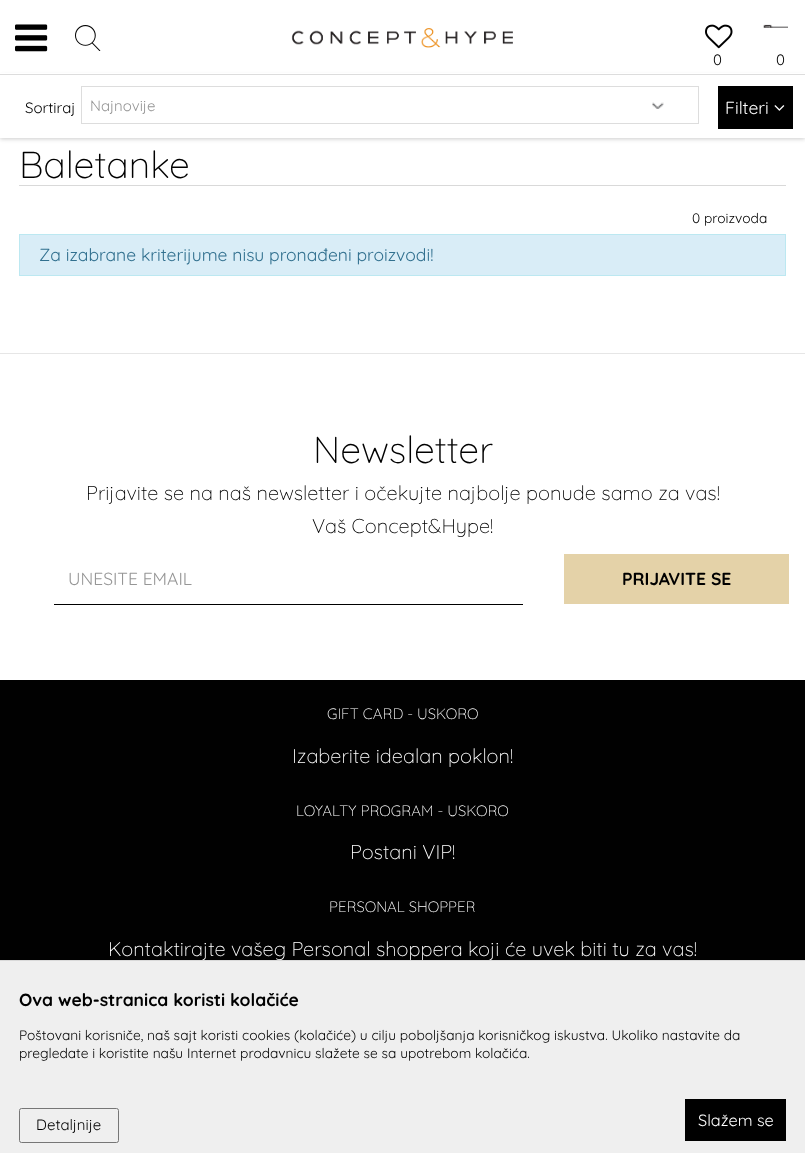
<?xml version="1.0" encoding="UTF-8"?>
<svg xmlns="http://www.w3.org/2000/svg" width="805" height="1153">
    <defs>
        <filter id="blur1" x="-50%" y="-200%" width="200%" height="500%"><feGaussianBlur stdDeviation="2"/></filter>
    </defs>
    <rect width="100%" height="100%" fill="#FFFFFF"/>
    <rect x="0" y="76" width="805" height="63" fill="#000000" fill-opacity="0.2" filter="url(#blur1)"/>
    <rect x="0" y="73" width="805" height="1" fill="#FFFFFF"/>
    <image x="291" y="28" width="222" height="20" href="img_01.png"/>
    <rect x="0" y="74" width="805" height="1" fill="#DDDDDD"/>
    <image x="15" y="24" width="33" height="28" href="img_02.png"/>
    <image x="75" y="25" width="26" height="26" href="img_03.png"/>
    <image x="705" y="24" width="28" height="25" href="img_04.png"/>
    <text x="713" y="65" font-family="Quicksand" font-size="15" fill="#000000">0</text>
    <image x="763" y="24" width="25" height="4" href="img_05.png"/>
    <text x="776" y="65" font-family="Quicksand" font-size="15" fill="#000000">0</text>
    <rect x="19" y="185" width="767" height="1" fill="#D9D9D9"/>
    <rect x="0" y="75" width="805" height="63" fill="#FFFFFF"/>
    <text x="25" y="113" font-family="Quicksand" font-size="15" fill="#000000">Sortiraj</text>
    <image x="652" y="102" width="12" height="7" href="img_06.png"/>
    <rect x="81.5" y="86.5" width="617" height="37" fill="none" stroke="#DDDDDD"/>
    <text x="90" y="111" font-family="Quicksand" font-size="15" fill="#969696">Najnovije</text>
    <rect x="718" y="86" width="75" height="43" fill="#000000"/>
    <text x="725" y="114" font-family="Quicksand" font-size="17.5" fill="#FFFFFF">Filteri</text>
    <image x="774" y="105" width="11" height="6" href="img_07.png"/>
    <text x="19" y="178" font-family="Quicksand" font-size="37.5" font-weight="300" fill="#000000">Baletanke</text>
    <text x="692" y="223" font-family="Quicksand" font-size="13.75" fill="#000000">0 proizvoda</text>
    <rect x="19.5" y="234.5" width="766" height="41" fill="#D9EDF7" stroke="#BCE8F1"/>
    <text x="39" y="261" font-family="Quicksand" font-size="17.5" fill="#31708F">Za izabrane kriterijume nisu pronađeni proizvodi!</text>
    <rect x="0" y="353" width="805" height="1" fill="#E6E6E6"/>
    <text x="313" y="463" font-family="Quicksand" font-size="37.5" font-weight="300" fill="#000000">Newsletter</text>
    <text x="86" y="500" font-family="Quicksand" font-size="20" font-weight="300" fill="#000000">Prijavite se na naš newsletter i očekujte najbolje ponude samo za vas!</text>
    <text x="312" y="533" font-family="Quicksand" font-size="20" font-weight="300" fill="#000000">Vaš Concept&amp;Hype!</text>
    <rect x="54" y="604" width="469" height="1" fill="#000000"/>
    <text x="68" y="585" font-family="Quicksand" font-size="17.5" fill="#969696">UNESITE EMAIL</text>
    <rect x="564" y="554" width="225" height="50" fill="#E4D2A8"/>
    <text x="622" y="585" font-family="Quicksand" font-size="17.5" font-weight="700" fill="#000000">PRIJAVITE SE</text>
    <rect x="0" y="680" width="805" height="280" fill="#010101"/>
    <text x="327" y="719" font-family="Quicksand" font-size="15" font-weight="300" fill="#FFFFFF">GIFT CARD - USKORO</text>
    <text x="292" y="763" font-family="Quicksand" font-size="20" font-weight="300" fill="#FFFFFF">Izaberite idealan poklon!</text>
    <text x="296" y="816" font-family="Quicksand" font-size="15" font-weight="300" fill="#FFFFFF">LOYALTY PROGRAM - USKORO</text>
    <text x="350" y="859" font-family="Quicksand" font-size="20" font-weight="300" fill="#FFFFFF">Postani VIP!</text>
    <text x="329" y="912" font-family="Quicksand" font-size="15" font-weight="300" fill="#FFFFFF">PERSONAL SHOPPER</text>
    <text x="108" y="956" font-family="Quicksand" font-size="20" font-weight="300" fill="#FFFFFF">Kontaktirajte vašeg Personal shoppera koji će uvek biti tu za vas!</text>
    <rect x="-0.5" y="960.5" width="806" height="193" fill="none" stroke="#D9D9D9"/>
    <rect x="0" y="961" width="805" height="192" fill="#EFEFEF"/>
    <text x="19" y="1006" font-family="Quicksand" font-size="17.5" font-weight="700" fill="#000000">Ova web-stranica koristi kolačiće</text>
    <text font-family="Quicksand" font-size="13.75" fill="#000000">
        <tspan x="19" y="1040">Poštovani korisniče, naš sajt koristi cookies (kolačiće) u cilju poboljšanja korisničkog iskustva. Ukoliko nastavite da</tspan>
        <tspan x="19" y="1058">pregledate i koristite našu Internet prodavnicu slažete se sa upotrebom kolačića.</tspan>
    </text>
    <rect x="19.5" y="1108.5" width="99" height="34" rx="2" fill="none" stroke="#767676"/>
    <text x="36" y="1130" font-family="Quicksand" font-size="15" fill="#000000">Detaljnije</text>
    <rect x="685" y="1099" width="101" height="42" fill="#000000"/>
    <text x="698" y="1126" font-family="Quicksand" font-size="16.25" fill="#FFFFFF">Slažem se</text>
</svg>
